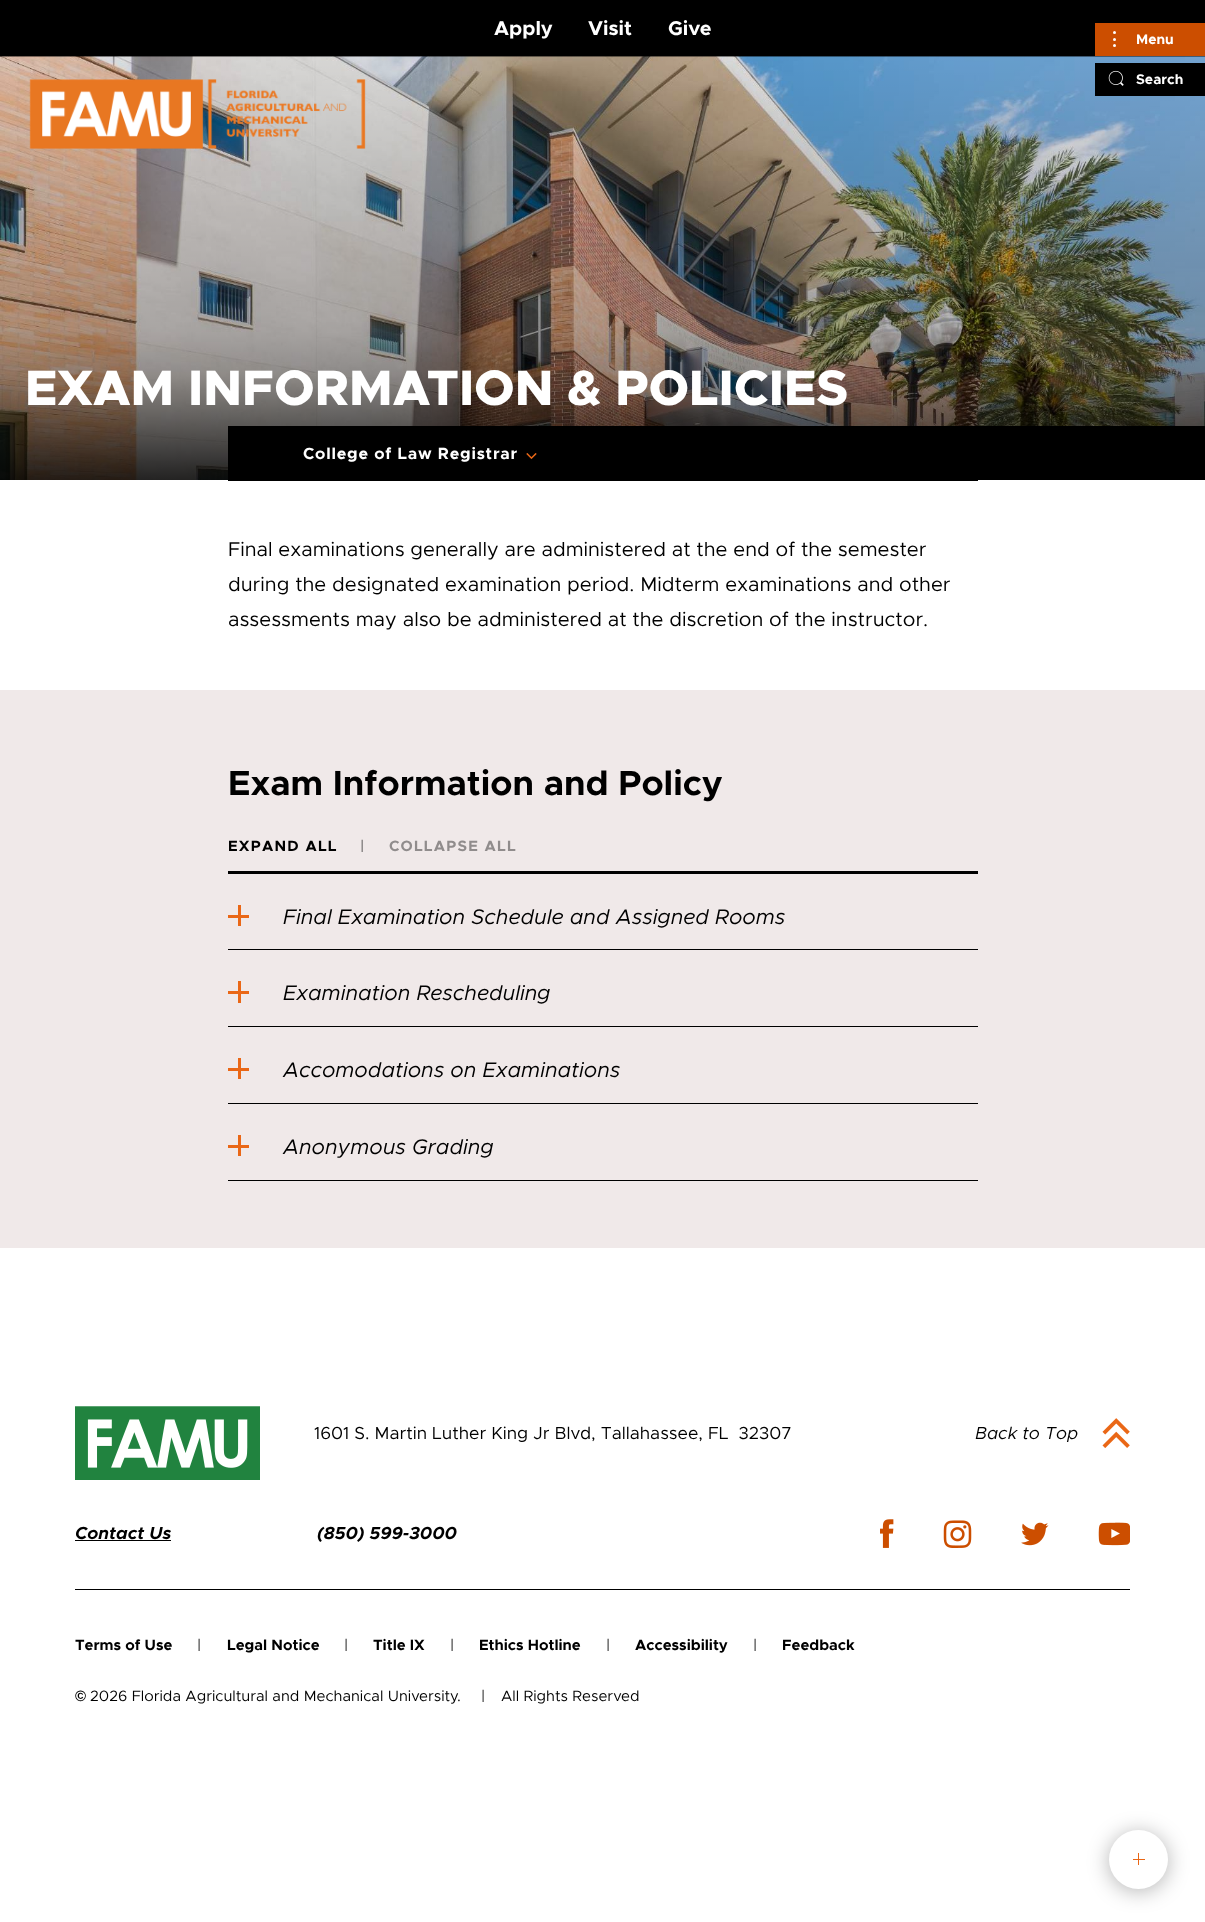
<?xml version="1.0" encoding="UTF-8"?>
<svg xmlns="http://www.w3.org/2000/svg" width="1205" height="1922">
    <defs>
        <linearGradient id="g1" gradientUnits="userSpaceOnUse" x1="603" y1="56" x2="603" y2="480"><stop offset="0" stop-color="#000000" stop-opacity="0.1"/><stop offset="0.65" stop-color="#000000" stop-opacity="0.3"/><stop offset="0.75" stop-color="#000000" stop-opacity="0.4"/><stop offset="1" stop-color="#000000" stop-opacity="0.85"/></linearGradient>
        <filter id="blur1" x="-50%" y="-200%" width="200%" height="500%"><feGaussianBlur stdDeviation="10.5"/></filter>
    </defs>
    <rect width="100%" height="100%" fill="#FFFFFF"/>
    <rect x="0" y="0" width="1205" height="57" fill="#000000"/>
    <text x="494" y="35" font-family="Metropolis" font-size="20" font-weight="700" fill="#FFFFFF">Apply</text>
    <text x="588" y="35" font-family="Metropolis" font-size="20" font-weight="700" fill="#FFFFFF">Visit</text>
    <text x="668" y="35" font-family="Metropolis" font-size="20" font-weight="700" fill="#FFFFFF">Give</text>
    <rect x="1095" y="23" width="110" height="33" fill="#CC4E00"/>
    <circle cx="1114.5" cy="45.5" r="1.5" fill="#FFFFFF"/>
    <circle cx="1114.5" cy="32.5" r="1.5" fill="#FFFFFF"/>
    <circle cx="1114.5" cy="39.5" r="1.5" fill="#FFFFFF"/>
    <text x="1136" y="44" font-family="Metropolis" font-size="14" font-weight="700" fill="#FFFFFF">Menu</text>
    <image x="0" y="56" width="1205" height="424" href="img_03.png"/>
    <rect x="0" y="56" width="1205" height="424" fill="url(#g1)"/>
    <rect x="1095" y="63" width="110" height="33" fill="#000000"/>
    <image x="1108" y="70" width="16" height="16" href="img_01.png"/>
    <text x="1136" y="84" font-family="Metropolis" font-size="14" font-weight="700" fill="#FFFFFF">Search</text>
    <image x="29" y="79" width="337" height="70" href="img_02.png"/>
    <text x="25" y="405" font-family="Metropolis" font-size="50" font-weight="800" fill="#FFFFFF">EXAM INFORMATION &amp; POLICIES</text>
    <rect x="228" y="426" width="750" height="55" fill="#000000"/>
    <text x="303" y="459" font-family="Metropolis" font-size="16.25" font-weight="700" letter-spacing="0.8" fill="#FFFFFF">College of Law Registrar</text>
    <image x="526" y="453" width="11" height="6" href="img_04.png"/>
    <rect x="978" y="426" width="227" height="54" fill="#000000"/>
    <text font-family="Metropolis" font-size="20" fill="#000000">
        <tspan x="228" y="556">Final examinations generally are administered at the end of the semester</tspan>
        <tspan x="228" y="591">during the designated examination period. Midterm examinations and other</tspan>
        <tspan x="228" y="626">assessments may also be administered at the discretion of the instructor.</tspan>
    </text>
    <rect x="0" y="690" width="1205" height="558" fill="#F0E9E9"/>
    <text x="228" y="795" font-family="Metropolis" font-size="35" font-weight="700" fill="#000000">Exam Information and Policy</text>
    <rect x="228" y="871" width="750" height="3" fill="#000000"/>
    <text x="228" y="851" font-family="Metropolis" font-size="15" font-weight="700" letter-spacing="1.25" fill="#000000">EXPAND ALL</text>
    <text x="360" y="851" font-family="Metropolis" font-size="15" font-weight="700" letter-spacing="1.25" fill="#908C8C">|</text>
    <text x="389" y="851" font-family="Metropolis" font-size="15" font-weight="700" letter-spacing="1.25" fill="#908C8C">COLLAPSE ALL</text>
    <rect x="228" y="949" width="750" height="1" fill="#000000"/>
    <rect x="238" y="905" width="3" height="21" fill="#EA6716"/>
    <rect x="228" y="915" width="21" height="3" fill="#EA6716"/>
    <text x="283" y="924" font-family="Metropolis" font-size="21.25" font-style="italic" fill="#000000">Final Examination Schedule and Assigned Rooms</text>
    <rect x="228" y="1026" width="750" height="1" fill="#000000"/>
    <rect x="238" y="981" width="3" height="22" fill="#EA6716"/>
    <rect x="228" y="991" width="21" height="3" fill="#EA6716"/>
    <text x="283" y="1000" font-family="Metropolis" font-size="21.25" font-style="italic" fill="#000000">Examination Rescheduling</text>
    <rect x="228" y="1103" width="750" height="1" fill="#000000"/>
    <rect x="238" y="1058" width="3" height="21" fill="#EA6716"/>
    <rect x="228" y="1068" width="21" height="3" fill="#EA6716"/>
    <text x="283" y="1077" font-family="Metropolis" font-size="21.25" font-style="italic" fill="#000000">Accomodations on Examinations</text>
    <rect x="228" y="1180" width="750" height="1" fill="#000000"/>
    <rect x="238" y="1135" width="3" height="21" fill="#EA6716"/>
    <rect x="228" y="1145" width="21" height="3" fill="#EA6716"/>
    <text x="283" y="1154" font-family="Metropolis" font-size="21.25" font-style="italic" fill="#000000">Anonymous Grading</text>
    <rect x="75" y="1589" width="1055" height="1" fill="#000000"/>
    <image x="75" y="1406" width="185" height="74" href="img_05.png"/>
    <text x="314" y="1439" font-family="Metropolis" font-size="17.5" fill="#000000" xml:space="preserve">1601 S. Martin Luther King Jr Blvd, Tallahassee, FL  32307</text>
    <text x="975" y="1439" font-family="Metropolis" font-size="17.5" font-style="italic" fill="#000000">Back to Top</text>
    <image x="1102" y="1418" width="28" height="30" href="img_06.png"/>
    <text x="75" y="1539" font-family="Metropolis" font-size="17.5" font-weight="700" font-style="italic" fill="#000000">Contact Us</text>
    <rect x="75" y="1540" width="96" height="1" fill="#000000"/>
    <text x="317" y="1539" font-family="Metropolis" font-size="17.5" font-weight="700" font-style="italic" fill="#000000">(850) 599-3000</text>
    <image x="880" y="1519" width="14" height="29" href="img_07.png"/>
    <image x="943" y="1520" width="29" height="28" href="img_08.png"/>
    <image x="1021" y="1522" width="28" height="24" href="img_09.png"/>
    <image x="1098" y="1522" width="32" height="24" href="img_10.png"/>
    <text x="75" y="1650" font-family="Metropolis" font-size="15" font-weight="700" fill="#000000">Terms of Use</text>
    <text x="197" y="1650" font-family="Metropolis" font-size="15" fill="#000000">|</text>
    <text x="227" y="1650" font-family="Metropolis" font-size="15" font-weight="700" fill="#000000">Legal Notice</text>
    <text x="344" y="1650" font-family="Metropolis" font-size="15" fill="#000000">|</text>
    <text x="373" y="1650" font-family="Metropolis" font-size="15" font-weight="700" fill="#000000">Title IX</text>
    <text x="450" y="1650" font-family="Metropolis" font-size="15" fill="#000000">|</text>
    <text x="479" y="1650" font-family="Metropolis" font-size="15" font-weight="700" fill="#000000">Ethics Hotline</text>
    <text x="606" y="1650" font-family="Metropolis" font-size="15" fill="#000000">|</text>
    <text x="635" y="1650" font-family="Metropolis" font-size="15" font-weight="700" fill="#000000">Accessibility</text>
    <text x="753" y="1650" font-family="Metropolis" font-size="15" fill="#000000">|</text>
    <text x="782" y="1650" font-family="Metropolis" font-size="15" font-weight="700" fill="#000000">Feedback</text>
    <text x="75" y="1701" font-family="Liberation Sans" font-size="15" font-weight="700" fill="#000000">©</text>
    <text x="90" y="1701" font-family="Metropolis" font-size="15" fill="#000000">2026 Florida Agricultural and Mechanical University.</text>
    <text x="481" y="1701" font-family="Metropolis" font-size="15" fill="#000000">|</text>
    <text x="501" y="1701" font-family="Metropolis" font-size="15" fill="#000000">All Rights Reserved</text>
    <rect x="1109" y="1833" width="59" height="58" rx="29" fill="#000000" fill-opacity="0.3" filter="url(#blur1)"/>
    <circle cx="1138.5" cy="1859.5" r="29.5" fill="#FFFFFF"/>
    <rect x="1133" y="1859" width="12" height="1" fill="#EA6716"/>
    <rect x="1138" y="1853" width="1" height="12" fill="#EA6716"/>
</svg>
